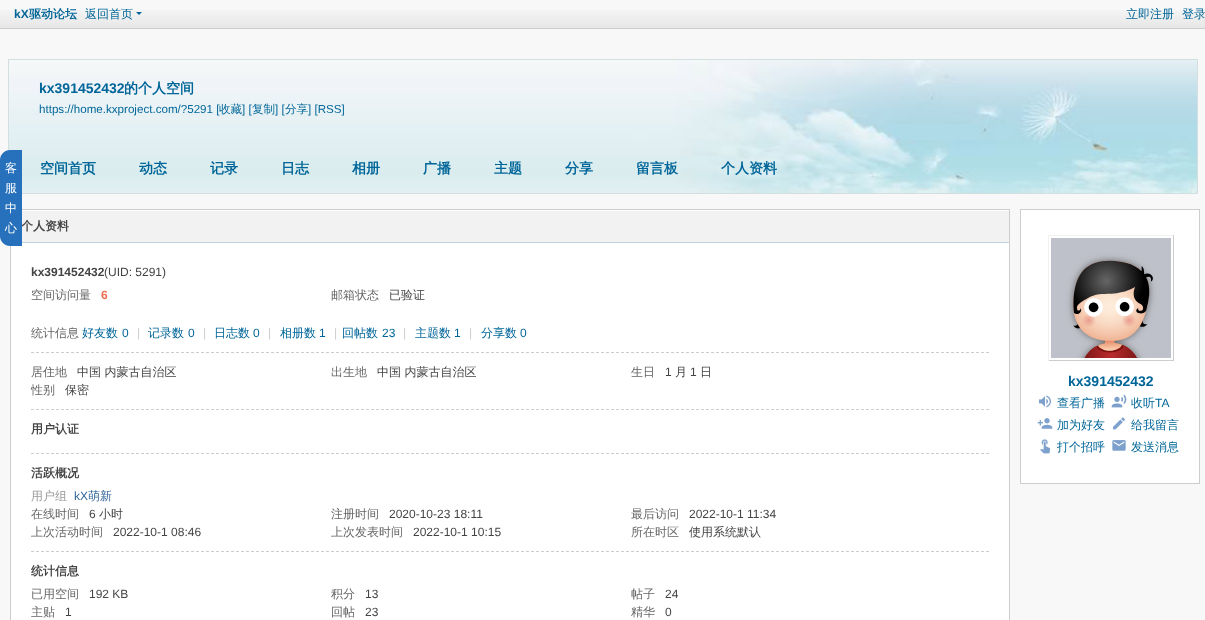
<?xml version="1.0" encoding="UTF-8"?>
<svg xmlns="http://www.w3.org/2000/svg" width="1205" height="620">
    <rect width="100%" height="100%" fill="#F8F8F8"/>
    <image x="0" y="10" width="1205" height="18" href="img_01.png"/>
    <rect x="0" y="28" width="1205" height="1" fill="#CDCDCD"/>
    <text x="14" y="18" font-family="Liberation Sans" font-size="12" font-weight="700" fill="#006699">kX</text>
    <text x="29" y="18" font-family="WenQuanYi Zen Hei" font-size="12" font-weight="700" fill="#006699">驱动论坛</text>
    <text x="85" y="18" font-family="WenQuanYi Zen Hei" font-size="12" font-weight="500" fill="#006699">返回首页</text>
    <path d="M 136 12 H 142 L 139 15 Z" fill="#006699"/>
    <text x="1126" y="18" font-family="WenQuanYi Zen Hei" font-size="12" font-weight="500" fill="#006699">立即注册</text>
    <text x="1182" y="18" font-family="WenQuanYi Zen Hei" font-size="12" font-weight="500" fill="#006699">登录</text>
    <image x="9" y="60" width="1188" height="133" href="img_02.png"/>
    <rect x="8.5" y="59.5" width="1189" height="134" fill="none" stroke="#D3DFDF"/>
    <text x="39" y="93" font-family="Liberation Sans" font-size="14" font-weight="700" fill="#006699">kx391452432</text>
    <text x="124" y="93" font-family="WenQuanYi Zen Hei" font-size="14" font-weight="700" fill="#006699">的个人空间</text>
    <text x="39" y="113" font-family="Liberation Sans" font-size="11.6" fill="#006699">https://home.kxproject.com/?5291 [</text>
    <text x="219" y="113" font-family="WenQuanYi Zen Hei" font-size="11.6" font-weight="500" fill="#006699">收藏</text>
    <text x="242" y="113" font-family="Liberation Sans" font-size="11.6" fill="#006699">] [</text>
    <text x="252" y="113" font-family="WenQuanYi Zen Hei" font-size="11.6" font-weight="500" fill="#006699">复制</text>
    <text x="275" y="113" font-family="Liberation Sans" font-size="11.6" fill="#006699">] [</text>
    <text x="285" y="113" font-family="WenQuanYi Zen Hei" font-size="11.6" font-weight="500" fill="#006699">分享</text>
    <text x="308" y="113" font-family="Liberation Sans" font-size="11.6" fill="#006699">] [RSS]</text>
    <text x="40" y="173" font-family="WenQuanYi Zen Hei" font-size="14" font-weight="700" fill="#006699">空间首页</text>
    <text x="139" y="173" font-family="WenQuanYi Zen Hei" font-size="14" font-weight="700" fill="#006699">动态</text>
    <text x="210" y="173" font-family="WenQuanYi Zen Hei" font-size="14" font-weight="700" fill="#006699">记录</text>
    <text x="281" y="173" font-family="WenQuanYi Zen Hei" font-size="14" font-weight="700" fill="#006699">日志</text>
    <text x="352" y="173" font-family="WenQuanYi Zen Hei" font-size="14" font-weight="700" fill="#006699">相册</text>
    <text x="423" y="173" font-family="WenQuanYi Zen Hei" font-size="14" font-weight="700" fill="#006699">广播</text>
    <text x="494" y="173" font-family="WenQuanYi Zen Hei" font-size="14" font-weight="700" fill="#006699">主题</text>
    <text x="565" y="173" font-family="WenQuanYi Zen Hei" font-size="14" font-weight="700" fill="#006699">分享</text>
    <text x="636" y="173" font-family="WenQuanYi Zen Hei" font-size="14" font-weight="700" fill="#006699">留言板</text>
    <text x="721" y="173" font-family="WenQuanYi Zen Hei" font-size="14" font-weight="700" fill="#006699">个人资料</text>
    <rect x="11" y="243" width="998" height="377" fill="#FFFFFF"/>
    <rect x="10.5" y="209.5" width="999" height="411" fill="none" stroke="#CDCDCD"/>
    <rect x="22" y="211" width="987" height="31" fill="#F2F2F2"/>
    <text x="21" y="230" font-family="WenQuanYi Zen Hei" font-size="12" font-weight="700" fill="#444444">个人资料</text>
    <path d="M 10 150 H 22 V 246 H 10 C 4.5 246 0 241.5 0 236 V 160 C 0 154.5 4.5 150 10 150 Z" fill="#2770BC"/>
    <text font-family="WenQuanYi Zen Hei" font-size="12" font-weight="500" fill="#FFFFFF">
        <tspan x="5" y="172">客</tspan>
        <tspan x="5" y="192">服</tspan>
        <tspan x="5" y="212">中</tspan>
        <tspan x="5" y="232">心</tspan>
    </text>
    <rect x="22" y="210" width="987" height="1" fill="#FFFFFF"/>
    <rect x="22" y="242" width="987" height="1" fill="#C2D5E3"/>
    <path d="M 31 409.5 H 989" fill="none" stroke="#CDCDCD" stroke-dasharray="3 2"/>
    <text x="31" y="276" font-family="Liberation Sans" font-size="12" font-weight="700" fill="#444444">kx391452432</text>
    <text x="104" y="276" font-family="Liberation Sans" font-size="12" fill="#444444">(UID: 5291)</text>
    <text x="31" y="299" font-family="WenQuanYi Zen Hei" font-size="12" font-weight="500" fill="#666666">空间访问量</text>
    <text x="101" y="299" font-family="Liberation Sans" font-size="12" font-weight="700" fill="#F26C4F">6</text>
    <text x="331" y="299" font-family="WenQuanYi Zen Hei" font-size="12" font-weight="500" fill="#666666">邮箱状态</text>
    <text x="389" y="299" font-family="WenQuanYi Zen Hei" font-size="12" font-weight="500" fill="#444444">已验证</text>
    <path d="M 31 352.5 H 989" fill="none" stroke="#CDCDCD" stroke-dasharray="3 2"/>
    <text x="31" y="337" font-family="WenQuanYi Zen Hei" font-size="12" font-weight="500" fill="#666666">统计信息</text>
    <text x="82" y="337" font-family="WenQuanYi Zen Hei" font-size="12" font-weight="500" fill="#006699">好友数</text>
    <text x="122" y="337" font-family="Liberation Sans" font-size="12" fill="#006699">0</text>
    <text x="137" y="337" font-family="Liberation Sans" font-size="12" fill="#CCCCCC">|</text>
    <text x="148" y="337" font-family="WenQuanYi Zen Hei" font-size="12" font-weight="500" fill="#006699">记录数</text>
    <text x="188" y="337" font-family="Liberation Sans" font-size="12" fill="#006699">0</text>
    <text x="203" y="337" font-family="Liberation Sans" font-size="12" fill="#CCCCCC">|</text>
    <text x="214" y="337" font-family="WenQuanYi Zen Hei" font-size="12" font-weight="500" fill="#006699">日志数</text>
    <text x="253" y="337" font-family="Liberation Sans" font-size="12" fill="#006699">0</text>
    <text x="268" y="337" font-family="Liberation Sans" font-size="12" fill="#CCCCCC">|</text>
    <text x="280" y="337" font-family="WenQuanYi Zen Hei" font-size="12" font-weight="500" fill="#006699">相册数</text>
    <text x="319" y="337" font-family="Liberation Sans" font-size="12" fill="#006699">1</text>
    <text x="334" y="337" font-family="Liberation Sans" font-size="12" fill="#CCCCCC">|</text>
    <text x="342" y="337" font-family="WenQuanYi Zen Hei" font-size="12" font-weight="500" fill="#006699">回帖数</text>
    <text x="382" y="337" font-family="Liberation Sans" font-size="12" fill="#006699">23</text>
    <text x="403" y="337" font-family="Liberation Sans" font-size="12" fill="#CCCCCC">|</text>
    <text x="415" y="337" font-family="WenQuanYi Zen Hei" font-size="12" font-weight="500" fill="#006699">主题数</text>
    <text x="454" y="337" font-family="Liberation Sans" font-size="12" fill="#006699">1</text>
    <text x="469" y="337" font-family="Liberation Sans" font-size="12" fill="#CCCCCC">|</text>
    <text x="481" y="337" font-family="WenQuanYi Zen Hei" font-size="12" font-weight="500" fill="#006699">分享数</text>
    <text x="520" y="337" font-family="Liberation Sans" font-size="12" fill="#006699">0</text>
    <text x="31" y="376" font-family="WenQuanYi Zen Hei" font-size="12" font-weight="500" fill="#666666">居住地</text>
    <text x="77" y="376" font-family="WenQuanYi Zen Hei" font-size="12" font-weight="500" fill="#444444">中国 内蒙古自治区</text>
    <text x="331" y="376" font-family="WenQuanYi Zen Hei" font-size="12" font-weight="500" fill="#666666">出生地</text>
    <text x="377" y="376" font-family="WenQuanYi Zen Hei" font-size="12" font-weight="500" fill="#444444">中国 内蒙古自治区</text>
    <text x="631" y="376" font-family="WenQuanYi Zen Hei" font-size="12" font-weight="500" fill="#666666">生日</text>
    <text x="665" y="376" font-family="Liberation Sans" font-size="12" fill="#444444">1</text>
    <text x="675" y="376" font-family="WenQuanYi Zen Hei" font-size="12" font-weight="500" fill="#444444">月</text>
    <text x="690" y="376" font-family="Liberation Sans" font-size="12" fill="#444444">1</text>
    <text x="700" y="376" font-family="WenQuanYi Zen Hei" font-size="12" font-weight="500" fill="#444444">日</text>
    <text x="31" y="394" font-family="WenQuanYi Zen Hei" font-size="12" font-weight="500" fill="#666666">性别</text>
    <text x="65" y="394" font-family="WenQuanYi Zen Hei" font-size="12" font-weight="500" fill="#444444">保密</text>
    <path d="M 31 453.5 H 989" fill="none" stroke="#CDCDCD" stroke-dasharray="3 2"/>
    <text x="31" y="433" font-family="WenQuanYi Zen Hei" font-size="12" font-weight="700" fill="#444444">用户认证</text>
    <path d="M 31 551.5 H 989" fill="none" stroke="#CDCDCD" stroke-dasharray="3 2"/>
    <text x="31" y="477" font-family="WenQuanYi Zen Hei" font-size="12" font-weight="700" fill="#444444">活跃概况</text>
    <text x="31" y="500" font-family="WenQuanYi Zen Hei" font-size="12" font-weight="500" fill="#999999">用户组</text>
    <text x="74" y="500" font-family="Liberation Sans" font-size="12" fill="#336699">kX</text>
    <text x="88" y="500" font-family="WenQuanYi Zen Hei" font-size="12" font-weight="500" fill="#336699">萌新</text>
    <text x="31" y="518" font-family="WenQuanYi Zen Hei" font-size="12" font-weight="500" fill="#666666">在线时间</text>
    <text x="89" y="518" font-family="Liberation Sans" font-size="12" fill="#444444">6</text>
    <text x="99" y="518" font-family="WenQuanYi Zen Hei" font-size="12" font-weight="500" fill="#444444">小时</text>
    <text x="331" y="518" font-family="WenQuanYi Zen Hei" font-size="12" font-weight="500" fill="#666666">注册时间</text>
    <text x="389" y="518" font-family="Liberation Sans" font-size="12" fill="#444444">2020-10-23 18:11</text>
    <text x="631" y="518" font-family="WenQuanYi Zen Hei" font-size="12" font-weight="500" fill="#666666">最后访问</text>
    <text x="689" y="518" font-family="Liberation Sans" font-size="12" fill="#444444">2022-10-1 11:34</text>
    <text x="31" y="536" font-family="WenQuanYi Zen Hei" font-size="12" font-weight="500" fill="#666666">上次活动时间</text>
    <text x="113" y="536" font-family="Liberation Sans" font-size="12" fill="#444444">2022-10-1 08:46</text>
    <text x="331" y="536" font-family="WenQuanYi Zen Hei" font-size="12" font-weight="500" fill="#666666">上次发表时间</text>
    <text x="413" y="536" font-family="Liberation Sans" font-size="12" fill="#444444">2022-10-1 10:15</text>
    <text x="631" y="536" font-family="WenQuanYi Zen Hei" font-size="12" font-weight="500" fill="#666666">所在时区</text>
    <text x="689" y="536" font-family="WenQuanYi Zen Hei" font-size="12" font-weight="500" fill="#444444">使用系统默认</text>
    <text x="31" y="575" font-family="WenQuanYi Zen Hei" font-size="12" font-weight="700" fill="#444444">统计信息</text>
    <text x="31" y="598" font-family="WenQuanYi Zen Hei" font-size="12" font-weight="500" fill="#666666">已用空间</text>
    <text x="89" y="598" font-family="Liberation Sans" font-size="12" fill="#444444">192 KB</text>
    <text x="331" y="598" font-family="WenQuanYi Zen Hei" font-size="12" font-weight="500" fill="#666666">积分</text>
    <text x="365" y="598" font-family="Liberation Sans" font-size="12" fill="#444444">13</text>
    <text x="631" y="598" font-family="WenQuanYi Zen Hei" font-size="12" font-weight="500" fill="#666666">帖子</text>
    <text x="665" y="598" font-family="Liberation Sans" font-size="12" fill="#444444">24</text>
    <text x="31" y="616" font-family="WenQuanYi Zen Hei" font-size="12" font-weight="500" fill="#666666">主贴</text>
    <text x="65" y="616" font-family="Liberation Sans" font-size="12" fill="#444444">1</text>
    <text x="331" y="616" font-family="WenQuanYi Zen Hei" font-size="12" font-weight="500" fill="#666666">回帖</text>
    <text x="365" y="616" font-family="Liberation Sans" font-size="12" fill="#444444">23</text>
    <text x="631" y="616" font-family="WenQuanYi Zen Hei" font-size="12" font-weight="500" fill="#666666">精华</text>
    <text x="665" y="616" font-family="Liberation Sans" font-size="12" fill="#444444">0</text>
    <rect x="1020.5" y="209.5" width="179" height="274" fill="#FFFFFF" stroke="#CDCDCD"/>
    <rect x="1048" y="235" width="126" height="1" fill="#F2F2F2"/>
    <rect x="1173" y="235" width="1" height="126" fill="#CDCDCD"/>
    <rect x="1048" y="360" width="126" height="1" fill="#CDCDCD"/>
    <rect x="1048" y="235" width="1" height="126" fill="#F2F2F2"/>
    <image x="1051" y="238" width="120" height="120" href="img_03.png"/>
    <text x="1068" y="386" font-family="Liberation Sans" font-size="14" font-weight="700" fill="#006699">kx391452432</text>
    <image x="1039" y="395" width="12" height="13" href="img_04.png"/>
    <text x="1057" y="407" font-family="WenQuanYi Zen Hei" font-size="12" font-weight="500" fill="#006699">查看广播</text>
    <image x="1111" y="394" width="16" height="14" href="img_05.png"/>
    <text x="1131" y="407" font-family="WenQuanYi Zen Hei" font-size="12" font-weight="500" fill="#006699">收听</text>
    <text x="1155" y="407" font-family="Liberation Sans" font-size="12" fill="#006699">TA</text>
    <image x="1037" y="418" width="16" height="11" href="img_06.png"/>
    <text x="1057" y="429" font-family="WenQuanYi Zen Hei" font-size="12" font-weight="500" fill="#006699">加为好友</text>
    <image x="1113" y="417" width="12" height="13" href="img_07.png"/>
    <text x="1131" y="429" font-family="WenQuanYi Zen Hei" font-size="12" font-weight="500" fill="#006699">给我留言</text>
    <image x="1040" y="439" width="11" height="15" href="img_08.png"/>
    <text x="1057" y="451" font-family="WenQuanYi Zen Hei" font-size="12" font-weight="500" fill="#006699">打个招呼</text>
    <image x="1112" y="440" width="14" height="11" href="img_09.png"/>
    <text x="1131" y="451" font-family="WenQuanYi Zen Hei" font-size="12" font-weight="500" fill="#006699">发送消息</text>
</svg>
